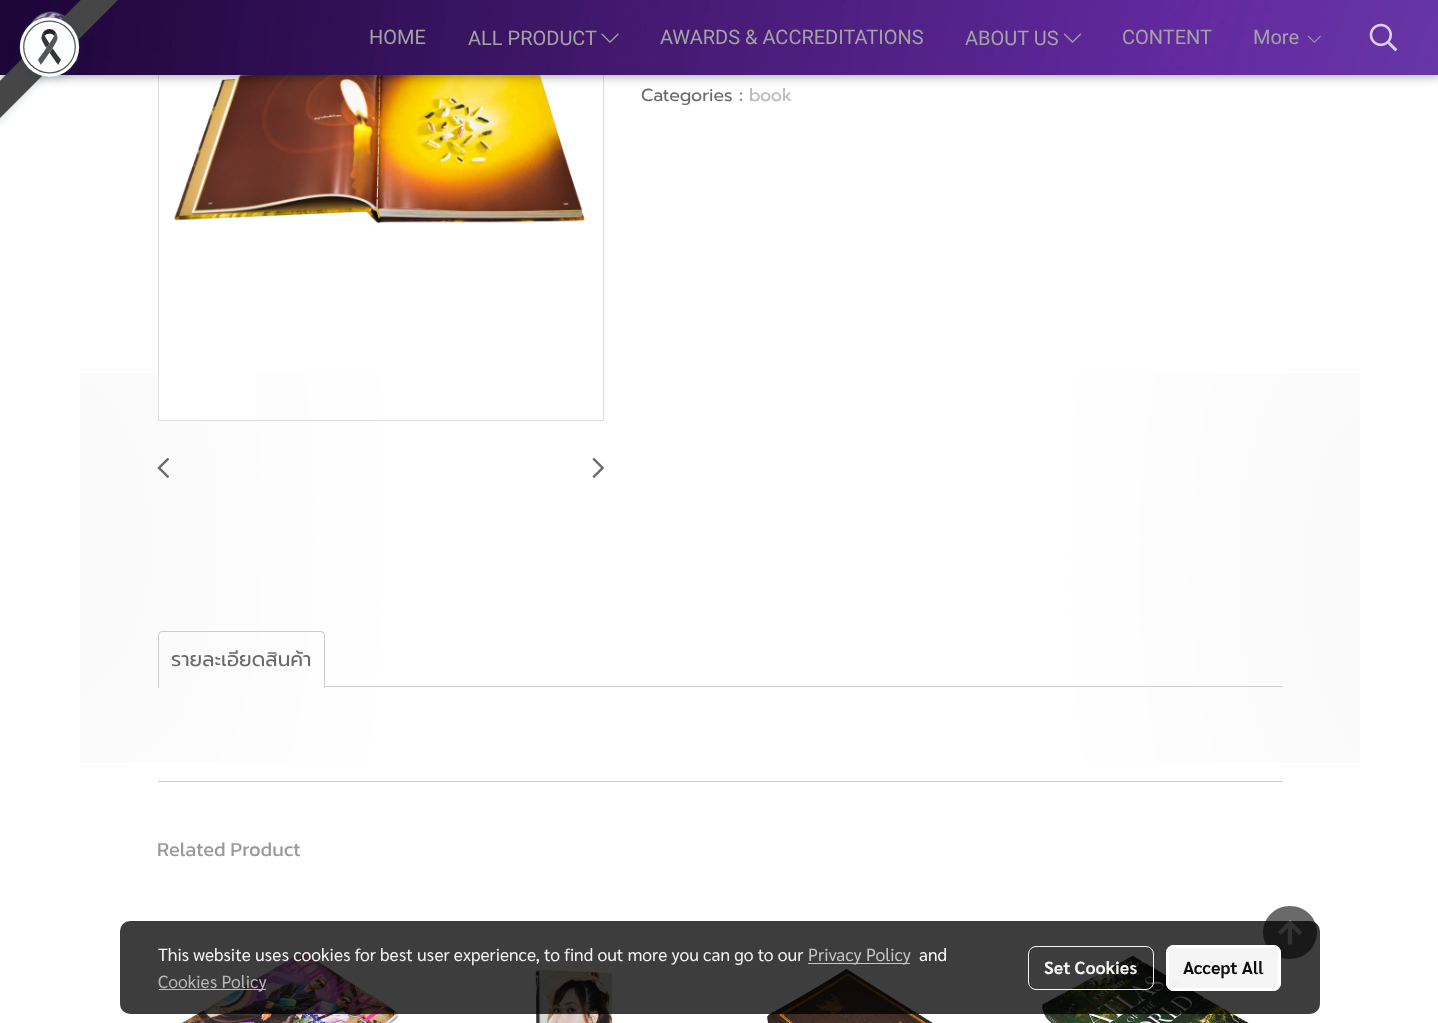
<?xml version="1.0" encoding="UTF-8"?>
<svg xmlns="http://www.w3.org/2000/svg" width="1438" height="1023">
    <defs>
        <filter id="blur1" x="-50%" y="-200%" width="200%" height="500%"><feGaussianBlur stdDeviation="6"/></filter>
        <filter id="blur2" x="-50%" y="-200%" width="200%" height="500%"><feGaussianBlur stdDeviation="3"/></filter>
    </defs>
    <rect width="100%" height="100%" fill="#FFFFFF"/>
    <image x="80" y="373" width="1280" height="390" href="img_01.png"/>
    <rect x="159" y="373" width="97" height="47" fill="#FFFFFF"/>
    <rect x="158.5" y="-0.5" width="445" height="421" fill="none" stroke="#DDDDDD"/>
    <image x="174" y="75" width="411" height="149" href="img_09.png"/>
    <rect x="0" y="3" width="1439" height="75" fill="#000000" fill-opacity="0.12" filter="url(#blur1)"/>
    <rect x="0" y="3" width="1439" height="75" fill="#000000" fill-opacity="0.16" filter="url(#blur2)"/>
    <image x="0" y="0" width="1438" height="75" href="img_03.png"/>
    <image x="28" y="11" width="51" height="53" href="img_04.png"/>
    <image x="0" y="0" width="119" height="126" href="img_02.png"/>
    <text x="369" y="44" font-family="Roboto" font-size="20" fill="#A3A3A3">HOME</text>
    <text x="468" y="45" font-family="Roboto" font-size="20" fill="#A3A3A3">ALL PRODUCT</text>
    <image x="601" y="33" width="18" height="10" href="img_05.png"/>
    <text x="660" y="44" font-family="Roboto" font-size="20" fill="#A3A3A3">AWARDS &amp; ACCREDITATIONS</text>
    <text x="965" y="45" font-family="Roboto" font-size="20" fill="#A3A3A3">ABOUT US</text>
    <image x="1063" y="33" width="19" height="10" href="img_06.png"/>
    <text x="1122" y="44" font-family="Roboto" font-size="20" fill="#A3A3A3">CONTENT</text>
    <text x="1253" y="44" font-family="Roboto" font-size="20" fill="#A3A3A3">More</text>
    <image x="1307" y="35" width="14" height="8" href="img_07.png"/>
    <image x="1369" y="23" width="29" height="29" href="img_08.png"/>
    <image x="157" y="457" width="12" height="21" href="img_10.png"/>
    <image x="592" y="457" width="12" height="21" href="img_11.png"/>
    <text x="641" y="101" font-family="Prompt" font-size="17.5" fill="#696969">Categories :</text>
    <text x="749" y="101" font-family="Prompt" font-size="17.5" fill="#B7B7B7">book</text>
    <path d="M 162 631 H 320 C 323 631 325 633 325 636 V 688 H 158 V 636 C 158 633 160 631 162 631 Z M 162 632 H 320 C 322 632 324 634 324 636 V 688 H 159 V 636 C 159 634 160 632 162 632 Z" fill="#CCCCCC" fill-rule="evenodd"/>
    <text x="171" y="666" font-family="Prompt" font-size="20" fill="#696969">รายละเอียดสินค้า</text>
    <rect x="325" y="686" width="958" height="1" fill="#CCCCCC"/>
    <rect x="158" y="781" width="1125" height="1" fill="#CCCCCC"/>
    <text x="157" y="856" font-family="Kanit" font-size="20" fill="#999999">Related Product</text>
    <image x="181" y="952" width="218" height="71" href="img_12.png"/>
    <image x="533" y="969" width="82" height="54" href="img_13.png"/>
    <image x="767" y="969" width="166" height="54" href="img_14.png"/>
    <image x="1042" y="955" width="207" height="68" href="img_15.png"/>
    <path d="M 1290 906 C 1275 906 1263 918 1263 932 C 1263 947 1275 959 1290 959 C 1305 959 1317 947 1317 932 C 1317 918 1305 906 1290 906 Z" fill="#6B6A6A"/>
    <image x="1278" y="920" width="24" height="25" href="img_16.png"/>
    <rect x="120" y="921" width="1200" height="93" rx="10" fill="#000000" fill-opacity="0.76"/>
    <text x="158" y="961" font-family="Sarabun" font-size="17.5" fill="#F5F5F5">This website uses cookies for best user experience, to find out more you can go to our</text>
    <rect x="808" y="963" width="102" height="1" fill="#C5C5C5"/>
    <text x="808" y="961" font-family="Sarabun" font-size="17.5" fill="#C5C5C5">Privacy Policy</text>
    <text x="919" y="961" font-family="Sarabun" font-size="17.5" fill="#FFFFFF">and</text>
    <rect x="159" y="989" width="107" height="1" fill="#C2C2C2" fill-opacity="0.95"/>
    <text x="158" y="988" font-family="Sarabun" font-size="17.5" fill="#B7B7B7">Cookies Policy</text>
    <rect x="1028.5" y="946.5" width="125" height="43" rx="7.5" fill="none" stroke="#FFFFFF" stroke-opacity="0.95"/>
    <text x="1044" y="974" font-family="Sarabun" font-size="17.5" font-weight="700" fill="#F5F5F5">Set Cookies</text>
    <rect x="1166" y="945" width="115" height="46" rx="8" fill="#FFFFFF" fill-opacity="0.95"/>
    <rect x="1167.5" y="946.5" width="112" height="43" rx="6.5" fill="none" stroke="#FFFFFF" stroke-opacity="0.95" stroke-width="3"/>
    <text x="1183" y="974" font-family="Sarabun" font-size="17.5" font-weight="700" fill="#0D0D0D">Accept All</text>
</svg>
